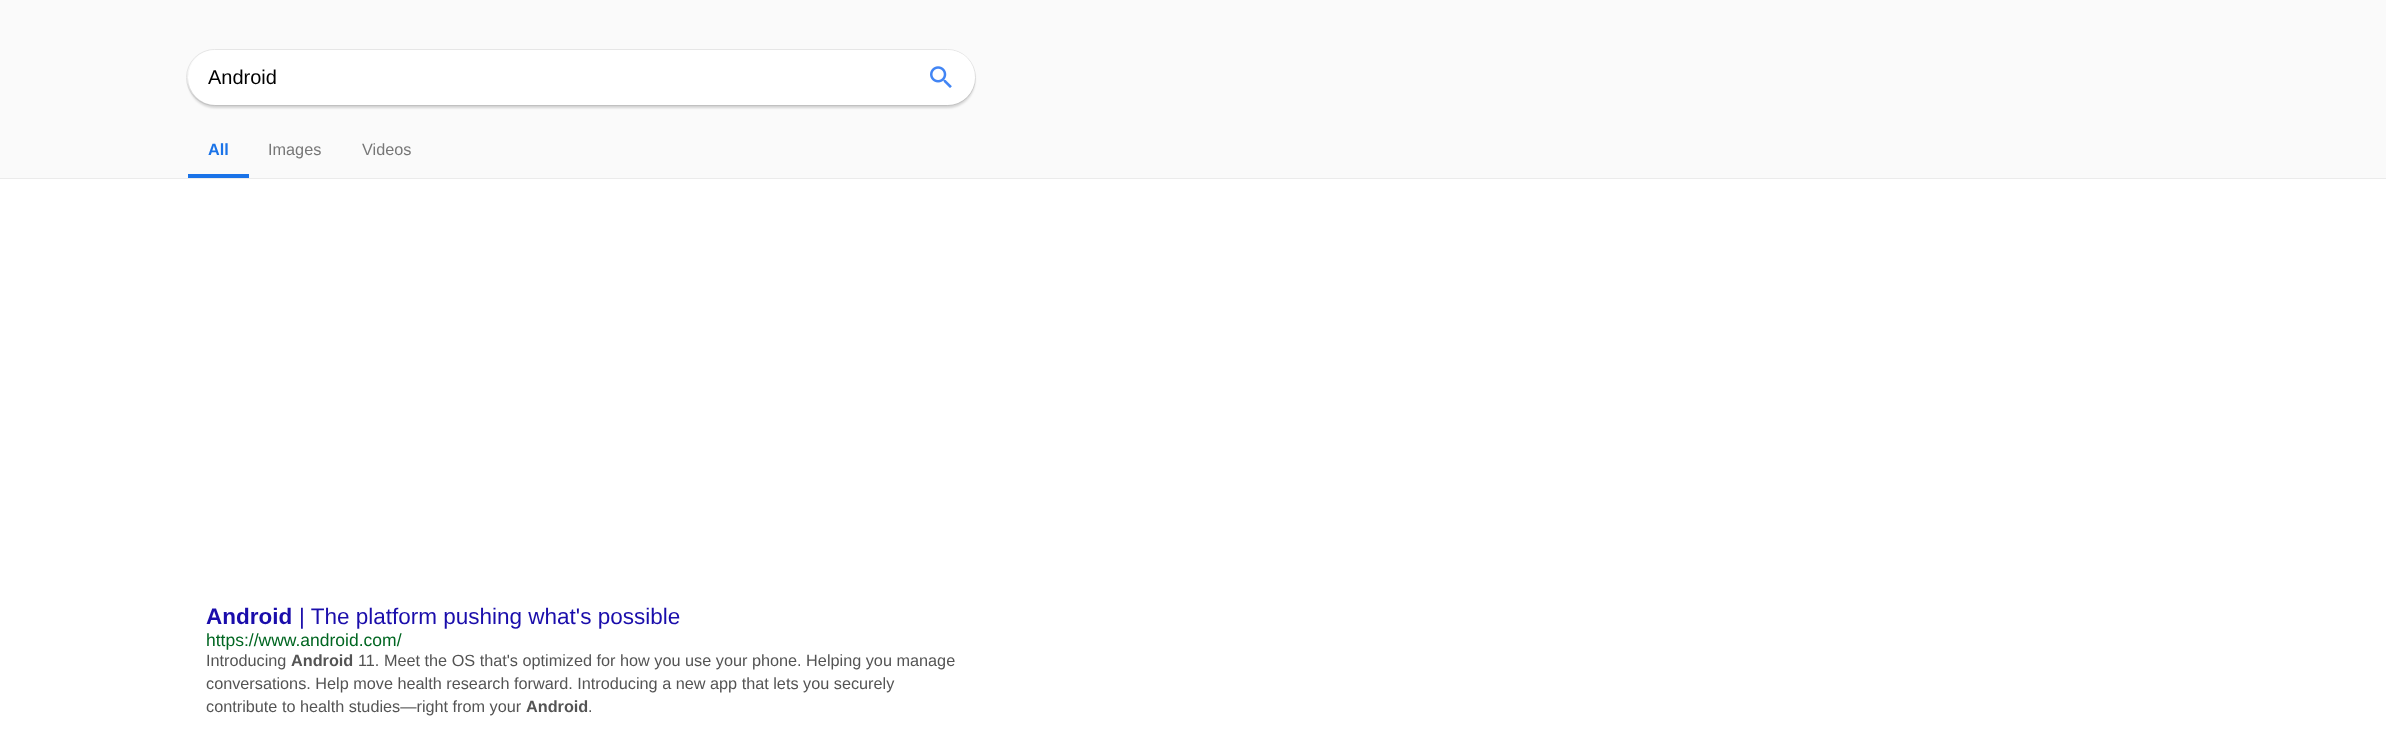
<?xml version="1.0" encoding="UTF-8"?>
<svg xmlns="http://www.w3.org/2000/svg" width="2386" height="751">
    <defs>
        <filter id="blur1" x="-50%" y="-200%" width="200%" height="500%"><feGaussianBlur stdDeviation="1"/></filter>
    </defs>
    <rect width="100%" height="100%" fill="#FFFFFF"/>
    <rect x="0" y="0" width="2386" height="178" fill="#FAFAFA"/>
    <rect x="0" y="178" width="2386" height="1" fill="#EBEBEB"/>
    <rect x="186.5" y="49.5" width="789" height="56" rx="28" fill="none" stroke="#E6E6E6"/>
    <rect x="188" y="53" width="787" height="55" rx="27.5" fill="#000000" fill-opacity="0.16" filter="url(#blur1)"/>
    <rect x="188" y="50" width="787" height="55" rx="27.5" fill="#FFFFFF"/>
    <text x="208" y="84" font-family="Liberation Sans" font-size="20" fill="#000000">Android</text>
    <image x="930" y="66" width="22" height="22" href="img_01.png"/>
    <rect x="188" y="174" width="61" height="4" fill="#1A73E8"/>
    <text x="208" y="155" font-family="Liberation Sans" font-size="16.25" font-weight="700" fill="#1A73E8">All</text>
    <text x="268" y="155" font-family="Liberation Sans" font-size="16.25" fill="#777777">Images</text>
    <text x="362" y="155" font-family="Liberation Sans" font-size="16.25" fill="#777777">Videos</text>
    <text x="206" y="624" font-family="Liberation Sans" font-size="22.5" font-weight="700" fill="#1A0DAB">Android</text>
    <text x="299" y="624" font-family="Liberation Sans" font-size="22.5" fill="#1A0DAB">| The platform pushing what's possible</text>
    <text x="206" y="646" font-family="Liberation Sans" font-size="17.5" fill="#006621">https://www.android.com/</text>
    <text x="206" y="666" font-family="Liberation Sans" font-size="16.25" fill="#545454">Introducing</text>
    <text x="291" y="666" font-family="Liberation Sans" font-size="16.25" font-weight="700" fill="#545454">Android</text>
    <text x="358" y="666" font-family="Liberation Sans" font-size="16.25" fill="#545454">11. Meet the OS that's optimized for how you use your phone. Helping you manage</text>
    <text font-family="Liberation Sans" font-size="16.25" fill="#545454">
        <tspan x="206" y="689">conversations. Help move health research forward. Introducing a new app that lets you securely</tspan>
        <tspan x="206" y="712">contribute to health studies—right from your</tspan>
    </text>
    <text x="526" y="712" font-family="Liberation Sans" font-size="16.25" font-weight="700" fill="#545454">Android</text>
    <text x="588" y="712" font-family="Liberation Sans" font-size="16.25" fill="#545454">.</text>
</svg>
